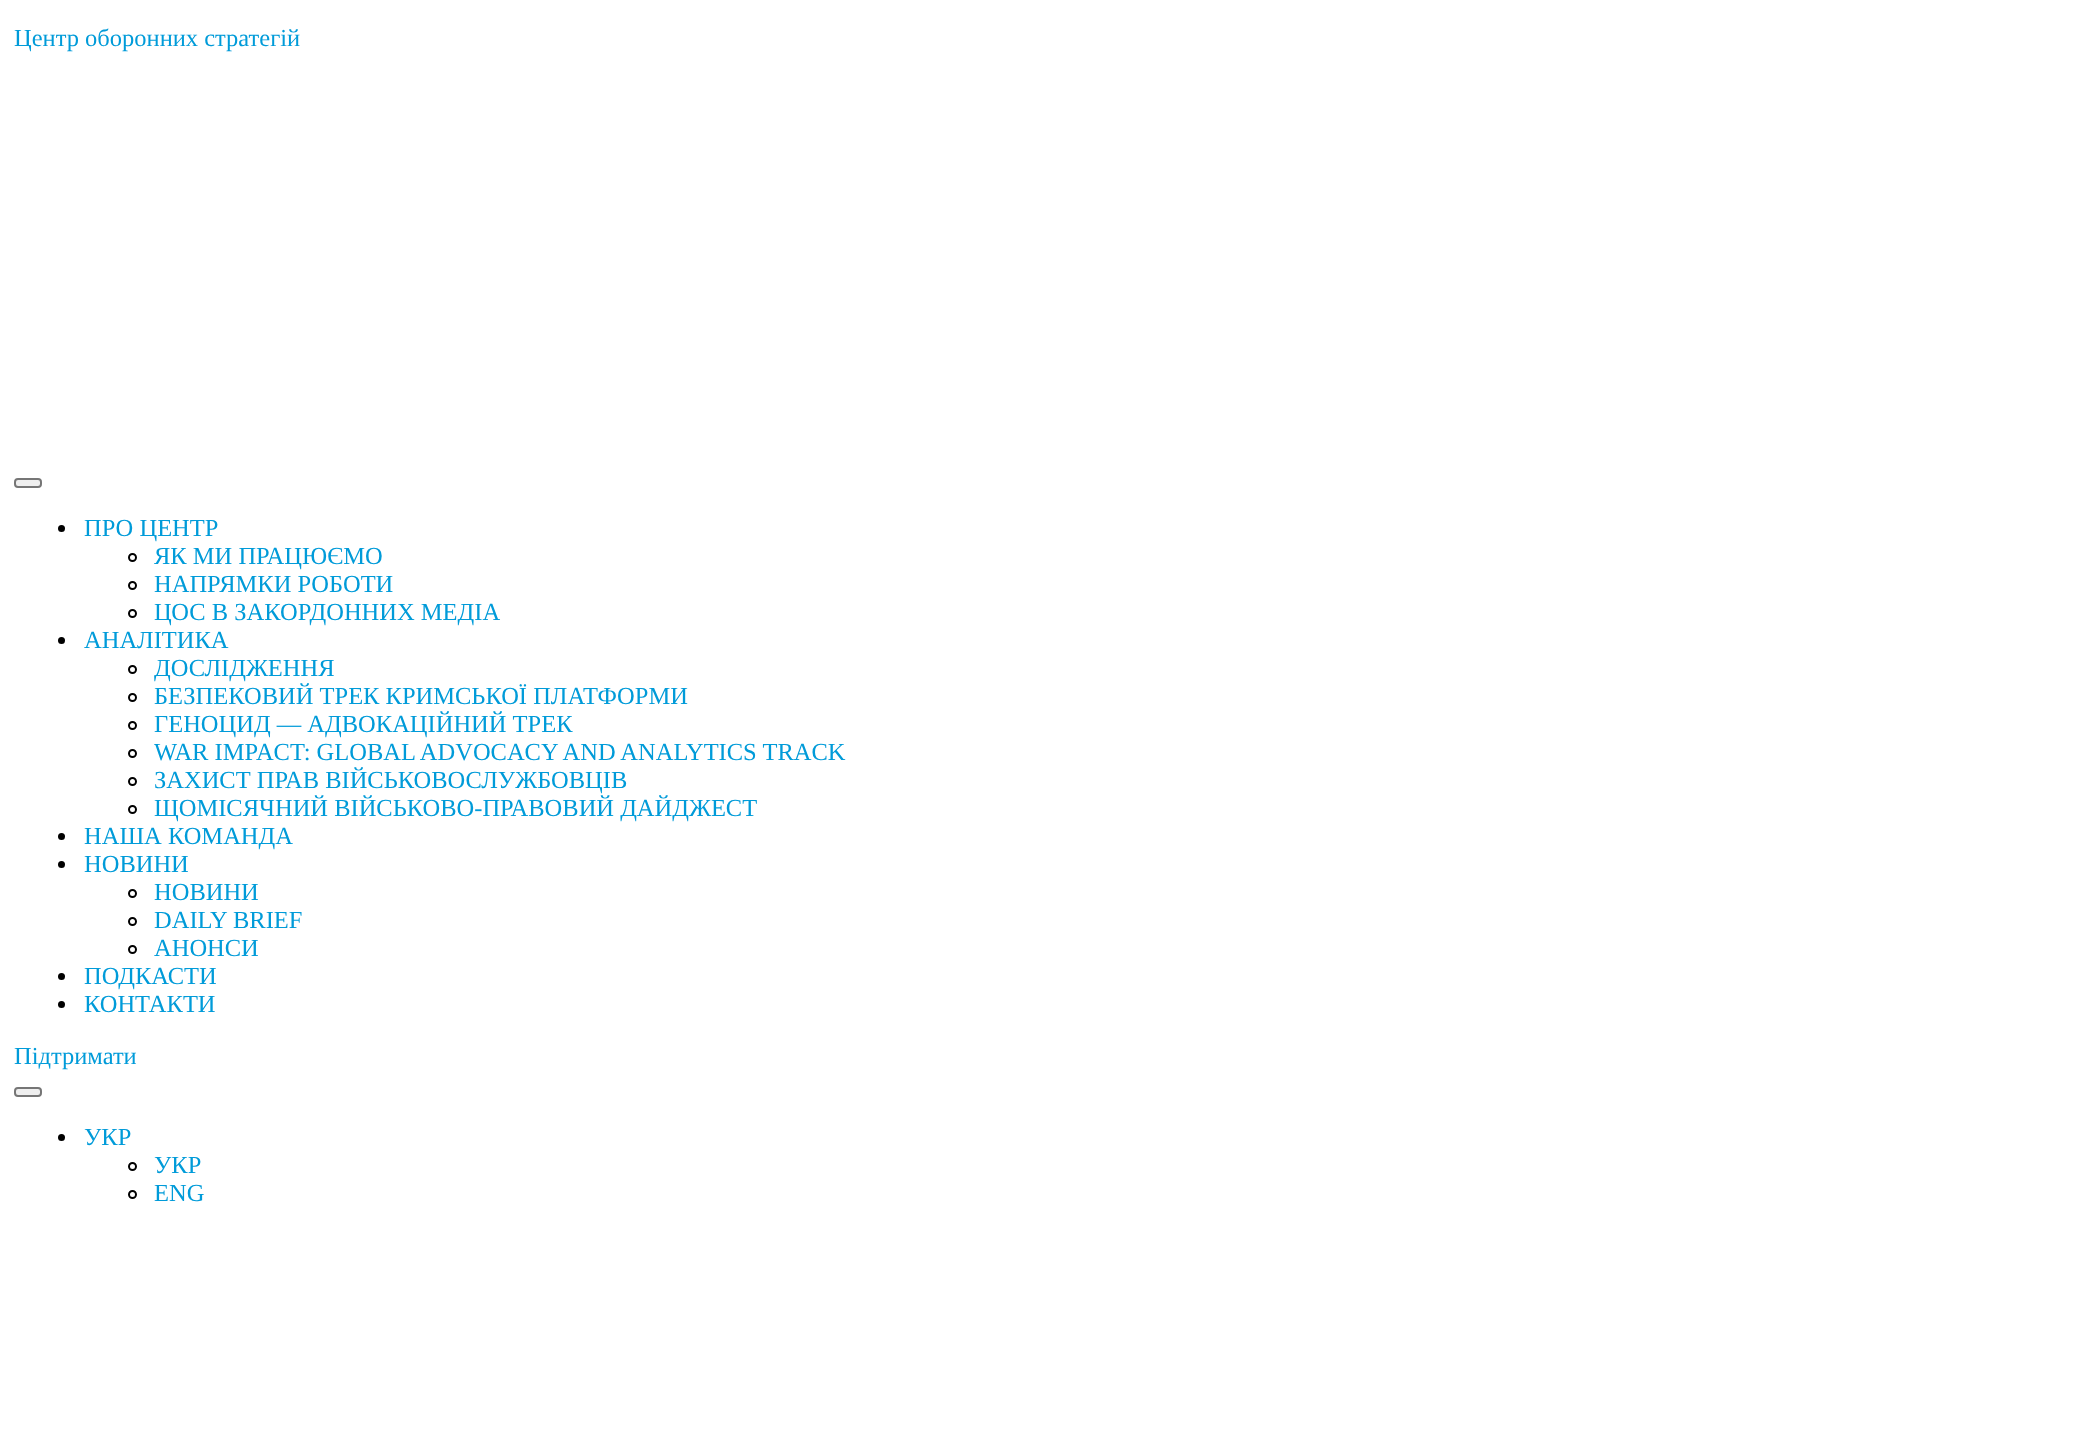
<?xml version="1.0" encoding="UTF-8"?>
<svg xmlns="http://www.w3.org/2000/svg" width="2096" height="1456">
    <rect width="100%" height="100%" fill="#FFFFFF"/>
    <text x="14" y="46" font-family="Liberation Serif" font-size="24.5" fill="#009BD9">Центр оборонних стратегій</text>
    <rect x="15" y="479" width="26" height="8" rx="3" fill="#EFEFEF" stroke="#767676" stroke-width="2"/>
    <circle cx="61.5" cy="528.5" r="3.5" fill="#000000"/>
    <text x="84" y="536" font-family="Liberation Serif" font-size="24.5" fill="#009BD9">ПРО ЦЕНТР</text>
    <circle cx="132.5" cy="557.5" r="3.5" fill="none" stroke="#000000" stroke-width="2"/>
    <text x="154" y="564" font-family="Liberation Serif" font-size="24.5" fill="#009BD9">ЯК МИ ПРАЦЮЄМО</text>
    <circle cx="132.5" cy="585.5" r="3.5" fill="none" stroke="#000000" stroke-width="2"/>
    <text x="154" y="592" font-family="Liberation Serif" font-size="24.5" fill="#009BD9">НАПРЯМКИ РОБОТИ</text>
    <circle cx="132.5" cy="613.5" r="3.5" fill="none" stroke="#000000" stroke-width="2"/>
    <text x="154" y="620" font-family="Liberation Serif" font-size="24.5" fill="#009BD9">ЦОС В ЗАКОРДОННИХ МЕДІА</text>
    <circle cx="61.5" cy="640.5" r="3.5" fill="#000000"/>
    <text x="84" y="648" font-family="Liberation Serif" font-size="24.5" fill="#009BD9">АНАЛІТИКА</text>
    <circle cx="132.5" cy="669.5" r="3.5" fill="none" stroke="#000000" stroke-width="2"/>
    <text x="154" y="676" font-family="Liberation Serif" font-size="24.5" fill="#009BD9">ДОСЛІДЖЕННЯ</text>
    <circle cx="132.5" cy="697.5" r="3.5" fill="none" stroke="#000000" stroke-width="2"/>
    <text x="154" y="704" font-family="Liberation Serif" font-size="24.5" fill="#009BD9">БЕЗПЕКОВИЙ ТРЕК КРИМСЬКОЇ ПЛАТФОРМИ</text>
    <circle cx="132.5" cy="725.5" r="3.5" fill="none" stroke="#000000" stroke-width="2"/>
    <text x="154" y="732" font-family="Liberation Serif" font-size="24.5" fill="#009BD9">ГЕНОЦИД — АДВОКАЦІЙНИЙ ТРЕК</text>
    <circle cx="132.5" cy="753.5" r="3.5" fill="none" stroke="#000000" stroke-width="2"/>
    <text x="154" y="760" font-family="Liberation Serif" font-size="24.5" fill="#009BD9">WAR IMPACT: GLOBAL ADVOCACY AND ANALYTICS TRACK</text>
    <circle cx="132.5" cy="781.5" r="3.5" fill="none" stroke="#000000" stroke-width="2"/>
    <text x="154" y="788" font-family="Liberation Serif" font-size="24.5" fill="#009BD9">ЗАХИСТ ПРАВ ВІЙСЬКОВОСЛУЖБОВЦІВ</text>
    <circle cx="132.5" cy="809.5" r="3.5" fill="none" stroke="#000000" stroke-width="2"/>
    <text x="154" y="816" font-family="Liberation Serif" font-size="24.5" fill="#009BD9">ЩОМІСЯЧНИЙ ВІЙСЬКОВО-ПРАВОВИЙ ДАЙДЖЕСТ</text>
    <circle cx="61.5" cy="836.5" r="3.5" fill="#000000"/>
    <text x="84" y="844" font-family="Liberation Serif" font-size="24.5" fill="#009BD9">НАША КОМАНДА</text>
    <circle cx="61.5" cy="864.5" r="3.5" fill="#000000"/>
    <text x="84" y="872" font-family="Liberation Serif" font-size="24.5" fill="#009BD9">НОВИНИ</text>
    <circle cx="132.5" cy="893.5" r="3.5" fill="none" stroke="#000000" stroke-width="2"/>
    <text x="154" y="900" font-family="Liberation Serif" font-size="24.5" fill="#009BD9">НОВИНИ</text>
    <circle cx="132.5" cy="921.5" r="3.5" fill="none" stroke="#000000" stroke-width="2"/>
    <text x="154" y="928" font-family="Liberation Serif" font-size="24.5" fill="#009BD9">DAILY BRIEF</text>
    <circle cx="132.5" cy="949.5" r="3.5" fill="none" stroke="#000000" stroke-width="2"/>
    <text x="154" y="956" font-family="Liberation Serif" font-size="24.5" fill="#009BD9">АНОНСИ</text>
    <circle cx="61.5" cy="976.5" r="3.5" fill="#000000"/>
    <text x="84" y="984" font-family="Liberation Serif" font-size="24.5" fill="#009BD9">ПОДКАСТИ</text>
    <circle cx="61.5" cy="1004.5" r="3.5" fill="#000000"/>
    <text x="84" y="1012" font-family="Liberation Serif" font-size="24.5" fill="#009BD9">КОНТАКТИ</text>
    <text x="14" y="1064" font-family="Liberation Serif" font-size="24.5" fill="#009BD9">Підтримати</text>
    <rect x="15" y="1088" width="26" height="8" rx="3" fill="#EFEFEF" stroke="#767676" stroke-width="2"/>
    <circle cx="61.5" cy="1137.5" r="3.5" fill="#000000"/>
    <text x="84" y="1145" font-family="Liberation Serif" font-size="24.5" fill="#009BD9">УКР</text>
    <circle cx="132.5" cy="1166.5" r="3.5" fill="none" stroke="#000000" stroke-width="2"/>
    <text x="154" y="1173" font-family="Liberation Serif" font-size="24.5" fill="#009BD9">УКР</text>
    <circle cx="132.5" cy="1194.5" r="3.5" fill="none" stroke="#000000" stroke-width="2"/>
    <text x="154" y="1201" font-family="Liberation Serif" font-size="24.5" fill="#009BD9">ENG</text>
</svg>
